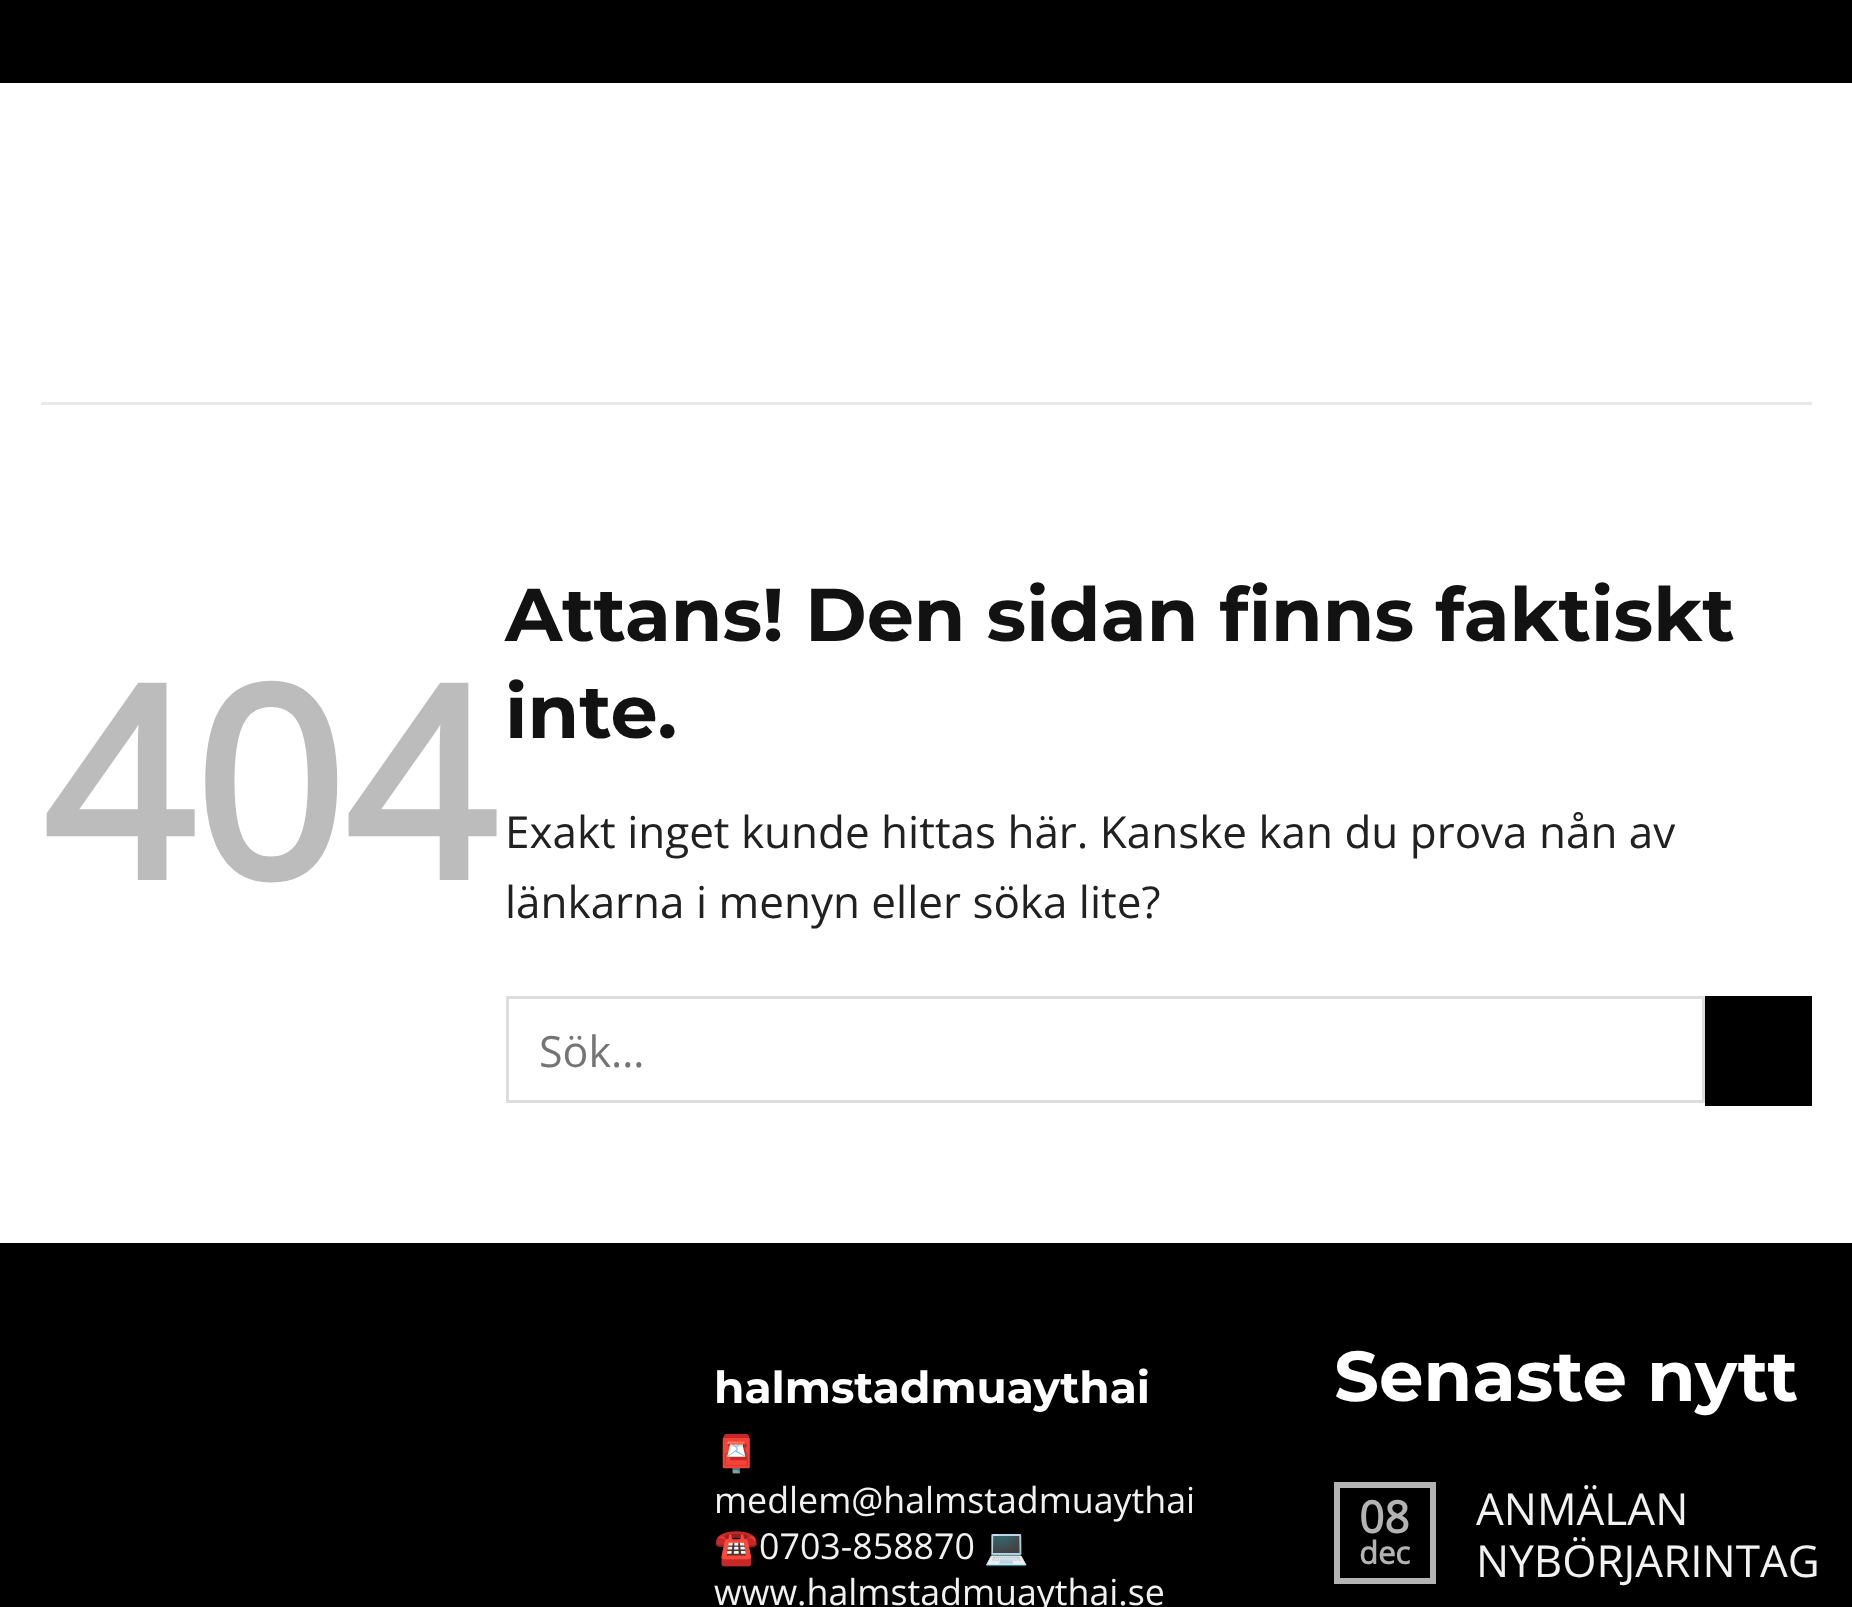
<?xml version="1.0" encoding="UTF-8"?>
<svg xmlns="http://www.w3.org/2000/svg" width="1852" height="1607">
    <rect width="100%" height="100%" fill="#FFFFFF"/>
    <rect x="0" y="0" width="1852" height="83" fill="#000000"/>
    <rect x="41" y="402" width="1771" height="3" fill="#E9E9E9"/>
    <text x="41" y="880" font-family="Open Sans" font-size="264" font-weight="700" fill="#BCBCBC">404</text>
    <text font-family="Montserrat" font-size="74.75" font-weight="700" fill="#121212">
        <tspan x="505" y="641">Attans! Den sidan finns faktiskt</tspan>
        <tspan x="505" y="738">inte.</tspan>
    </text>
    <text font-family="Open Sans" font-size="44" fill="#212121">
        <tspan x="505" y="848">Exakt inget kunde hittas här. Kanske kan du prova nån av</tspan>
        <tspan x="505" y="918">länkarna i menyn eller söka lite?</tspan>
    </text>
    <rect x="507.5" y="997.5" width="1196" height="104" fill="none" stroke="#DDDDDD" stroke-width="3"/>
    <text x="539" y="1067" font-family="Open Sans" font-size="43" fill="#757575">Sök…</text>
    <rect x="1705" y="996" width="107" height="110" fill="#000000"/>
    <rect x="0" y="1243" width="1852" height="364" fill="#000000"/>
    <text x="714" y="1403" font-family="Montserrat" font-size="44" font-weight="700" fill="#FFFFFF">halmstadmuaythai</text>
    <text x="714" y="1466" font-family="Noto Color Emoji" font-size="35.75" fill="#F1F1F1">📮</text>
    <text x="714" y="1513" font-family="Open Sans" font-size="35.75" fill="#F1F1F1">medlem@halmstadmuaythai</text>
    <text x="714" y="1559" font-family="Noto Color Emoji" font-size="35.75" fill="#F1F1F1">☎️</text>
    <text x="759" y="1559" font-family="Open Sans" font-size="35.75" fill="#F1F1F1">0703-858870</text>
    <text x="984" y="1559" font-family="Noto Color Emoji" font-size="35.75" fill="#F1F1F1">💻</text>
    <text x="714" y="1605" font-family="Open Sans" font-size="35.75" fill="#F1F1F1">www.halmstadmuaythai.se</text>
    <text x="1334" y="1401" font-family="Montserrat" font-size="70.5" font-weight="700" fill="#FFFFFF">Senaste nytt</text>
    <rect x="1337" y="1485" width="96" height="96" fill="none" stroke="#B3B3B3" stroke-width="6"/>
    <text x="1359" y="1533" font-family="Open Sans" font-size="44" font-weight="700" fill="#B3B3B3">08</text>
    <text x="1359" y="1564" font-family="Open Sans" font-size="31" font-weight="700" fill="#B3B3B3">dec</text>
    <text font-family="Open Sans" font-size="44" fill="#F1F1F1">
        <tspan x="1476" y="1525">ANMÄLAN</tspan>
        <tspan x="1476" y="1577">NYBÖRJARINTAG</tspan>
    </text>
</svg>
